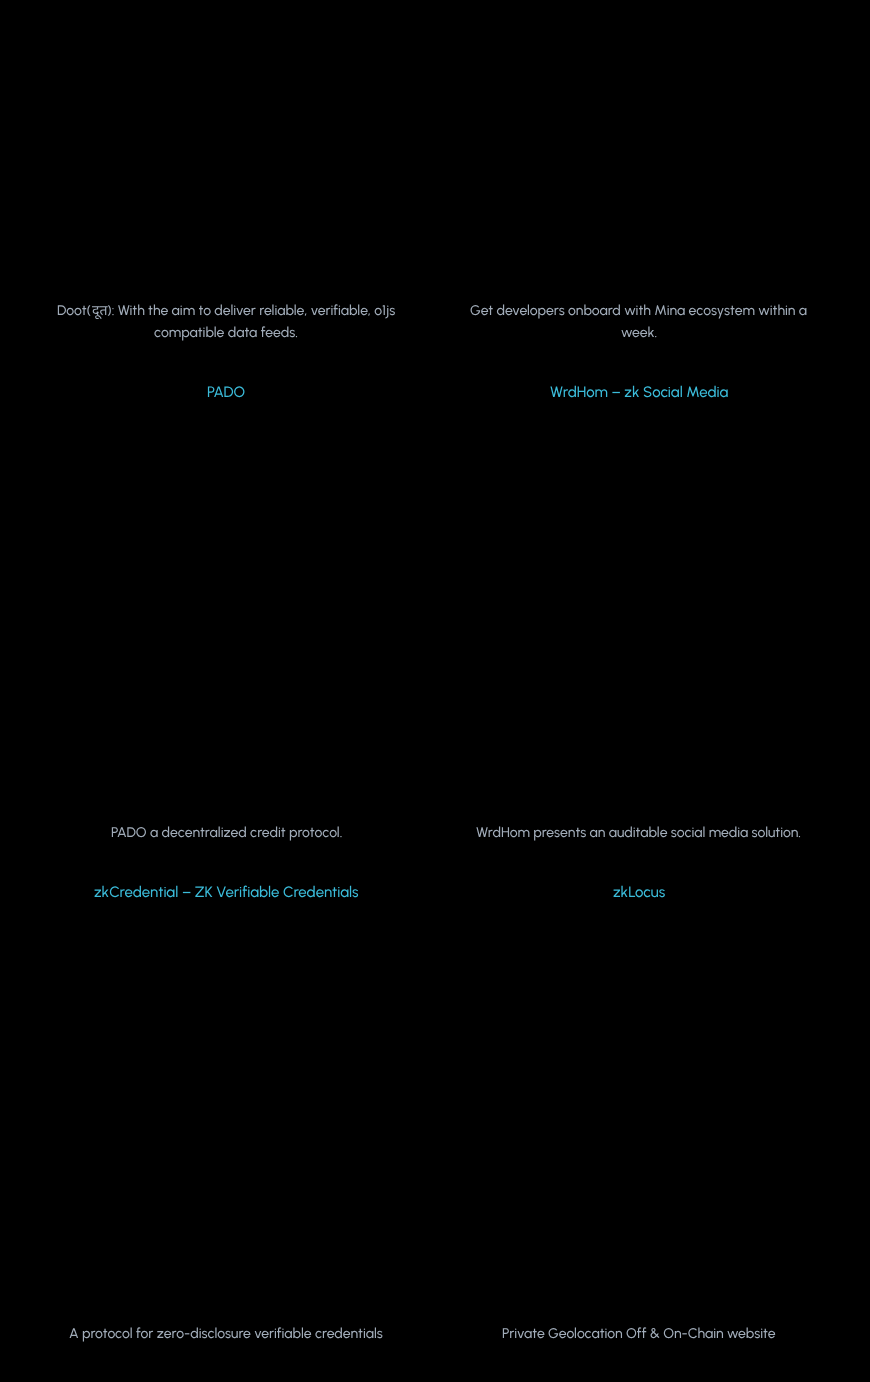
<?xml version="1.0" encoding="UTF-8"?>
<svg xmlns="http://www.w3.org/2000/svg" width="870" height="1382">
    <rect width="100%" height="100%" fill="#000000"/>
    <text x="57" y="315" font-family="Urbanist" font-size="14" font-weight="500" fill="#A1ACB9">Doot(</text>
    <text x="92" y="315" font-family="Noto Sans" font-size="14" fill="#A1ACB9">दूत</text>
    <text x="107" y="315" font-family="Urbanist" font-size="14" font-weight="500" fill="#A1ACB9">): With the aim to deliver reliable, verifiable, o1js</text>
    <text x="154" y="337" font-family="Urbanist" font-size="14" font-weight="500" fill="#A1ACB9">compatible data feeds.</text>
    <text x="470" y="315" font-family="Urbanist" font-size="14" font-weight="500" fill="#A1ACB9">Get developers onboard with Mina ecosystem within a</text>
    <text x="621" y="337" font-family="Urbanist" font-size="14" font-weight="500" fill="#A1ACB9">week.</text>
    <text x="207" y="397" font-family="Urbanist" font-size="15" font-weight="500" fill="#3BBCDA">PADO</text>
    <text x="111" y="837" font-family="Urbanist" font-size="14" font-weight="500" fill="#A1ACB9">PADO a decentralized credit protocol.</text>
    <text x="550" y="397" font-family="Urbanist" font-size="15" font-weight="500" fill="#3BBCDA">WrdHom – zk Social Media</text>
    <text x="476" y="837" font-family="Urbanist" font-size="14" font-weight="500" fill="#A1ACB9">WrdHom presents an auditable social media solution.</text>
    <text x="94" y="897" font-family="Urbanist" font-size="15" font-weight="500" fill="#3BBCDA">zkCredential – ZK Verifiable Credentials</text>
    <text x="69" y="1338" font-family="Urbanist" font-size="14" font-weight="500" fill="#A1ACB9">A protocol for zero-disclosure verifiable credentials</text>
    <text x="613" y="897" font-family="Urbanist" font-size="15" font-weight="500" fill="#3BBCDA">zkLocus</text>
    <text x="502" y="1338" font-family="Urbanist" font-size="14" font-weight="500" fill="#A1ACB9">Private Geolocation Off &amp; On-Chain website</text>
</svg>
